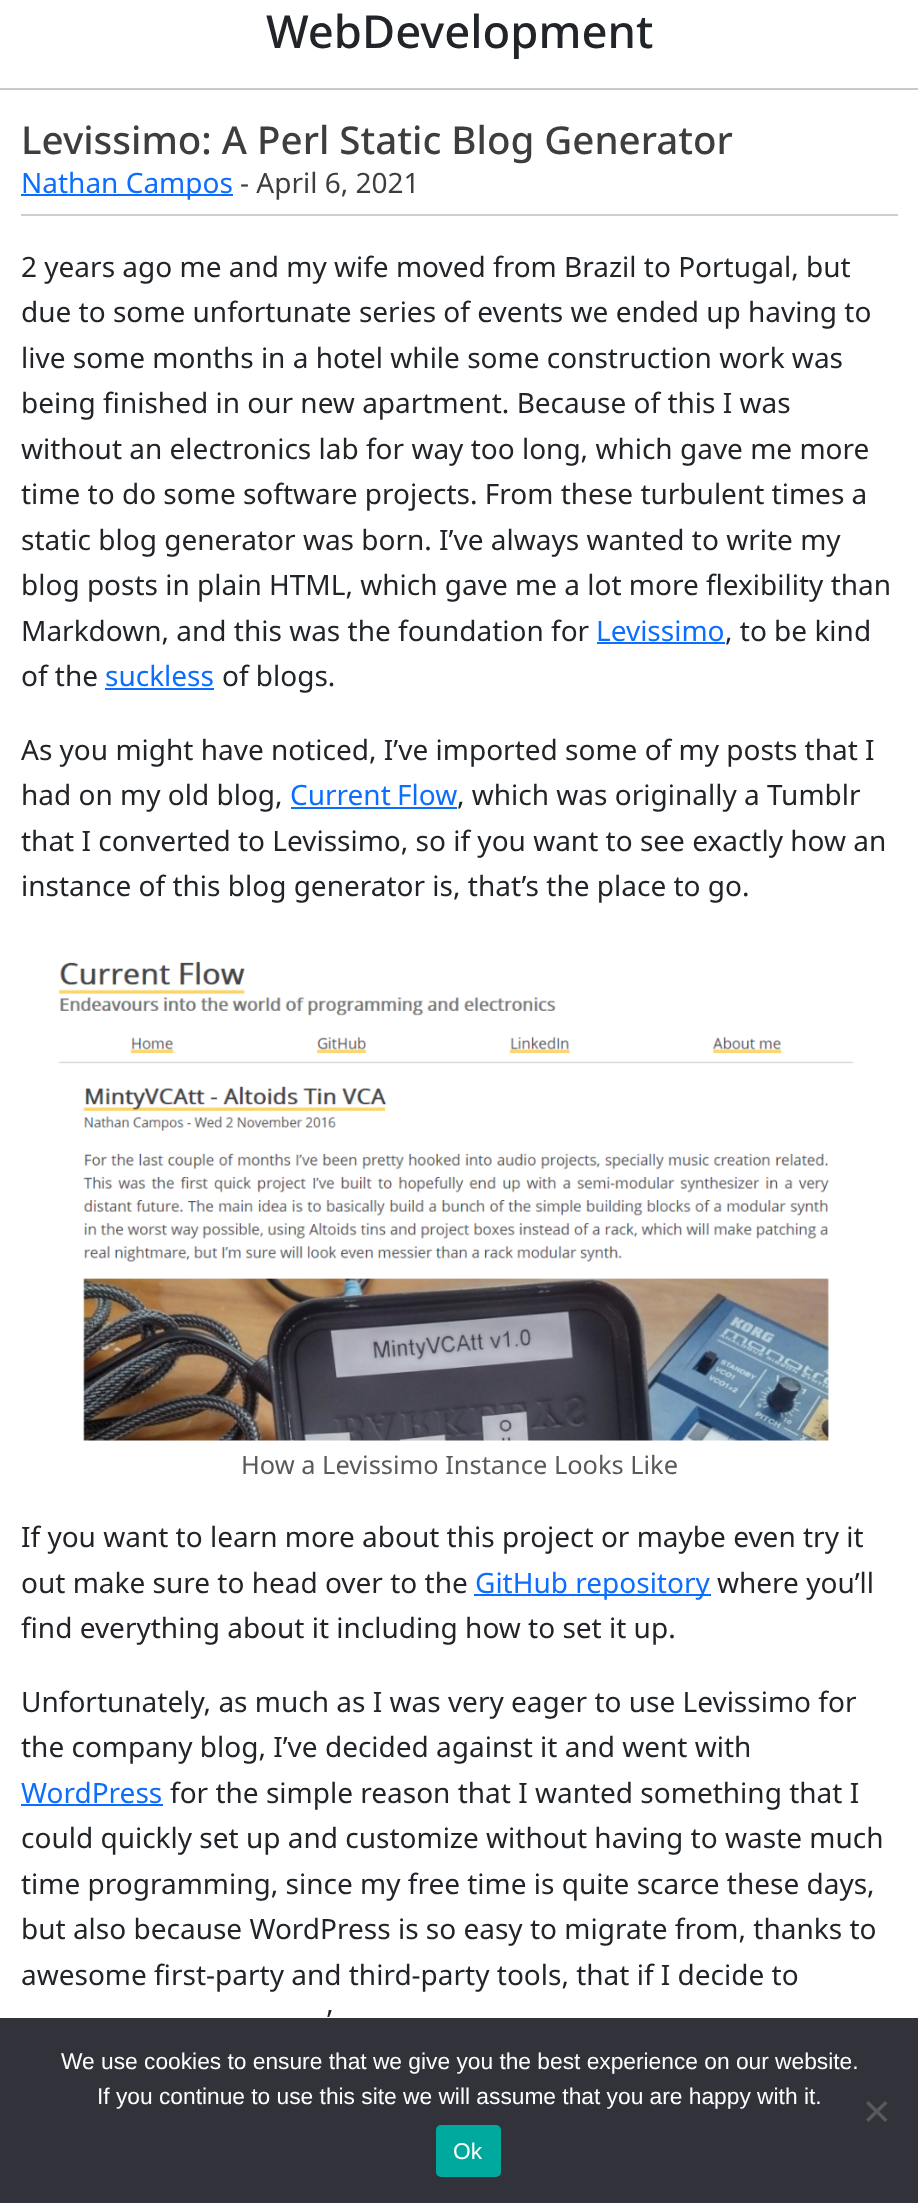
<?xml version="1.0" encoding="UTF-8"?>
<svg xmlns="http://www.w3.org/2000/svg" width="918" height="2203">
    <rect width="100%" height="100%" fill="#FFFFFF"/>
    <text x="266" y="48" font-family="Noto Sans" font-size="45.4" font-weight="500" fill="#212529">WebDevelopment</text>
    <rect x="0" y="88" width="918" height="2" fill="#C8C9CA"/>
    <text x="21" y="154" font-family="Noto Sans" font-size="38.5" font-weight="500" fill="#3E3E3E">Levissimo: A Perl Static Blog Generator</text>
    <rect x="21" y="194" width="212" height="2" fill="#0D6EFD"/>
    <text x="21" y="193" font-family="Noto Sans" font-size="28" fill="#0D6EFD">Nathan Campos</text>
    <text x="240" y="193" font-family="Noto Sans" font-size="28" fill="#3E3E3E">- April 6, 2021</text>
    <rect x="21" y="214" width="877" height="2" fill="#CFCFCF"/>
    <text font-family="Noto Sans" font-size="28" fill="#212529">
        <tspan x="21" y="277">2 years ago me and my wife moved from Brazil to Portugal, but</tspan>
        <tspan x="21" y="322">due to some unfortunate series of events we ended up having to</tspan>
        <tspan x="21" y="368">live some months in a hotel while some construction work was</tspan>
        <tspan x="21" y="413">being finished in our new apartment. Because of this I was</tspan>
        <tspan x="21" y="459">without an electronics lab for way too long, which gave me more</tspan>
        <tspan x="21" y="504">time to do some software projects. From these turbulent times a</tspan>
        <tspan x="21" y="550">static blog generator was born. I’ve always wanted to write my</tspan>
        <tspan x="21" y="595">blog posts in plain HTML, which gave me a lot more flexibility than</tspan>
        <tspan x="21" y="641">Markdown, and this was the foundation for</tspan>
    </text>
    <text x="596" y="641" font-family="Noto Sans" font-size="28" fill="#0D6EFD">Levissimo</text>
    <rect x="597" y="642" width="128" height="2" fill="#0D6EFD"/>
    <text x="725" y="641" font-family="Noto Sans" font-size="28" fill="#212529">, to be kind</text>
    <text x="21" y="686" font-family="Noto Sans" font-size="28" fill="#212529">of the</text>
    <text x="105" y="686" font-family="Noto Sans" font-size="28" fill="#0D6EFD">suckless</text>
    <rect x="105" y="688" width="109" height="2" fill="#0D6EFD"/>
    <text x="222" y="686" font-family="Noto Sans" font-size="28" fill="#212529">of blogs.</text>
    <text font-family="Noto Sans" font-size="28" fill="#212529">
        <tspan x="21" y="760">As you might have noticed, I’ve imported some of my posts that I</tspan>
        <tspan x="21" y="805">had on my old blog,</tspan>
    </text>
    <text x="290" y="805" word-spacing="-1" font-family="Noto Sans" font-size="28" fill="#0D6EFD">Current Flow</text>
    <rect x="291" y="807" width="166" height="2" fill="#0D6EFD"/>
    <text x="457" y="805" font-family="Noto Sans" font-size="28" fill="#212529">, which was originally a Tumblr</text>
    <text font-family="Noto Sans" font-size="28" fill="#212529">
        <tspan x="21" y="851">that I converted to Levissimo, so if you want to see exactly how an</tspan>
        <tspan x="21" y="896">instance of this blog generator is, that’s the place to go.</tspan>
    </text>
    <image x="58" y="961" width="796" height="480" href="img_01.png"/>
    <text x="241" y="1474" font-family="Noto Sans" font-size="25.4" fill="#5A5A5A">How a Levissimo Instance Looks Like</text>
    <text font-family="Noto Sans" font-size="28" fill="#212529">
        <tspan x="21" y="1547">If you want to learn more about this project or maybe even try it</tspan>
        <tspan x="21" y="1593">out make sure to head over to the</tspan>
    </text>
    <rect x="474" y="1594" width="237" height="2" fill="#0D6EFD"/>
    <text x="475" y="1593" font-family="Noto Sans" font-size="28" fill="#0D6EFD">GitHub repository</text>
    <text x="717" y="1593" font-family="Noto Sans" font-size="28" fill="#212529">where you’ll</text>
    <text x="21" y="1638" font-family="Noto Sans" font-size="28" fill="#212529">find everything about it including how to set it up.</text>
    <text font-family="Noto Sans" font-size="28" fill="#212529">
        <tspan x="21" y="1712">Unfortunately, as much as I was very eager to use Levissimo for</tspan>
        <tspan x="21" y="1757">the company blog, I’ve decided against it and went with</tspan>
    </text>
    <text x="21" y="1803" font-family="Noto Sans" font-size="28" fill="#0D6EFD">WordPress</text>
    <rect x="21" y="1804" width="142" height="2" fill="#0D6EFD"/>
    <text x="170" y="1803" font-family="Noto Sans" font-size="28" fill="#212529">for the simple reason that I wanted something that I</text>
    <text font-family="Noto Sans" font-size="28" fill="#212529">
        <tspan x="21" y="1848">could quickly set up and customize without having to waste much</tspan>
        <tspan x="21" y="1894">time programming, since my free time is quite scarce these days,</tspan>
        <tspan x="21" y="1939">but also because WordPress is so easy to migrate from, thanks to</tspan>
        <tspan x="21" y="1985">awesome first-party and third-party tools, that if I decide to</tspan>
    </text>
    <text x="327" y="2030" font-family="Noto Sans" font-size="28" fill="#212529">’</text>
    <rect x="0" y="2018" width="918" height="185" fill="#32323A"/>
    <text x="61" y="2069" font-family="Liberation Sans" font-size="22.75" fill="#FFFFFF">We use cookies to ensure that we give you the best experience on our website.</text>
    <text x="97" y="2104" font-family="Liberation Sans" font-size="22.75" fill="#FFFFFF">If you continue to use this site we will assume that you are happy with it.</text>
    <path d="M 885 2101 L 887.5 2103.5 L 868.5 2122 L 866 2119.5 Z" fill="#59595D"/>
    <path d="M 866 2103.5 L 868.5 2101 L 887.5 2119.5 L 885 2122 Z" fill="#59595D"/>
    <rect x="436" y="2125" width="65" height="52" rx="5" fill="#00A99D"/>
    <text x="453" y="2159" font-family="Liberation Sans" font-size="22.75" fill="#FFFFFF">Ok</text>
</svg>
